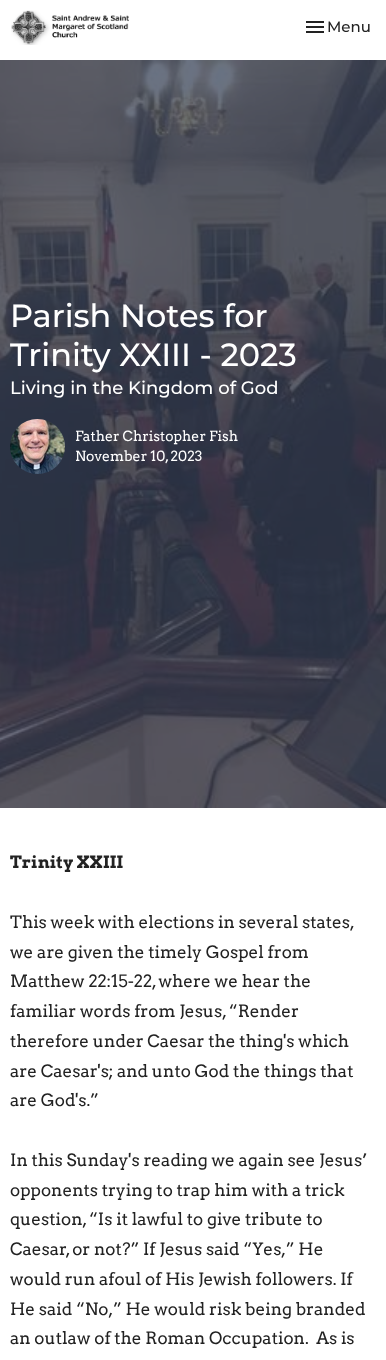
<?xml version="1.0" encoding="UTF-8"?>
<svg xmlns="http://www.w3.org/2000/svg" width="386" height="1360">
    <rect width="100%" height="100%" fill="#FFFFFF"/>
    <image x="11" y="10" width="118" height="35" href="img_01.png"/>
    <image x="306" y="21" width="18" height="12" href="img_02.png"/>
    <text x="327" y="32" font-family="Montserrat" font-size="15" font-weight="500" fill="#222222">Menu</text>
    <image x="0" y="60" width="386" height="748" href="img_03.png"/>
    <text font-family="Montserrat" font-size="32" font-weight="500" fill="#FFFFFF">
        <tspan x="10" y="327">Parish Notes for</tspan>
        <tspan x="10" y="366">Trinity XXIII - 2023</tspan>
    </text>
    <text x="10" y="394" font-family="Montserrat" font-size="18" font-weight="500" fill="#FFFFFF">Living in the Kingdom of God</text>
    <image x="10" y="419" width="55" height="55" href="img_04.png"/>
    <text font-family="Arvo" font-size="14" fill="#FFFFFF">
        <tspan x="75" y="441">Father Christopher Fish</tspan>
        <tspan x="75" y="461">November 10, 2023</tspan>
    </text>
    <text x="10" y="868" font-family="Arvo" font-size="17" font-weight="700" fill="#222222">Trinity XXIII</text>
    <text font-family="Arvo" font-size="17" fill="#222222">
        <tspan x="10" y="928">This week with elections in several states,</tspan>
        <tspan x="10" y="958">we are given the timely Gospel from</tspan>
        <tspan x="10" y="987">Matthew 22:15-22, where we hear the</tspan>
        <tspan x="10" y="1017">familiar words from Jesus, “Render</tspan>
        <tspan x="10" y="1047">therefore under Caesar the thing's which</tspan>
        <tspan x="10" y="1077">are Caesar's; and unto God the things that</tspan>
        <tspan x="10" y="1106">are God's.”</tspan>
    </text>
    <text font-family="Arvo" font-size="17" fill="#222222" xml:space="preserve"><tspan x="10" y="1166">In this Sunday's reading we again see Jesus’</tspan><tspan x="10" y="1196">opponents trying to trap him with a trick</tspan><tspan x="10" y="1225">question, “Is it lawful to give tribute to</tspan><tspan x="10" y="1255">Caesar, or not?” If Jesus said “Yes,” He</tspan><tspan x="10" y="1285">would run afoul of His Jewish followers. If</tspan><tspan x="10" y="1315">He said “No,” He would risk being branded</tspan><tspan x="10" y="1344">an outlaw of the Roman Occupation.  As is</tspan></text>
</svg>
